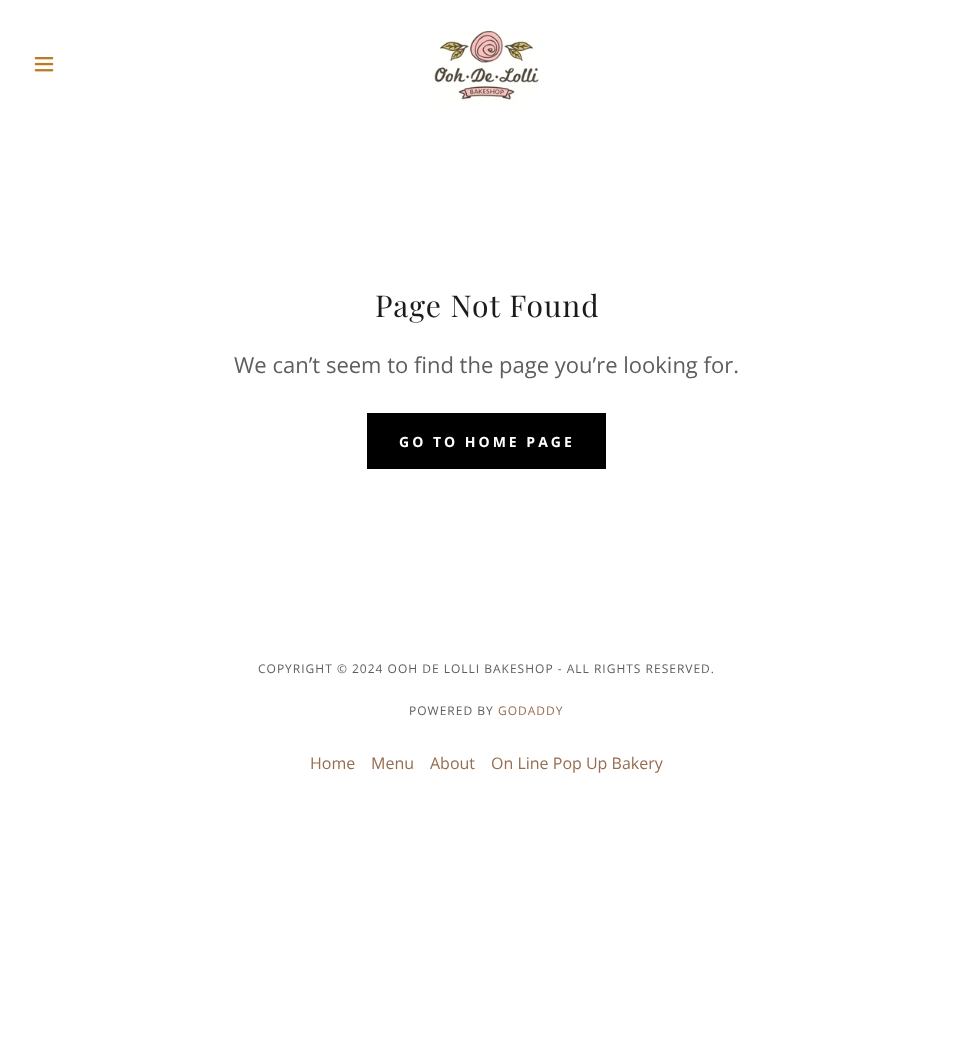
<?xml version="1.0" encoding="UTF-8"?>
<svg xmlns="http://www.w3.org/2000/svg" width="973" height="1055">
    <rect width="100%" height="100%" fill="#FFFFFF"/>
    <image x="34" y="57" width="20" height="15" href="img_01.png"/>
    <image x="432" y="30" width="108" height="74" href="img_02.png"/>
    <text x="375" y="317" font-family="Playfair Display" font-size="30" letter-spacing="1" fill="#1B1B1B">Page Not Found</text>
    <text x="234" y="373" font-family="Open Sans" font-size="22" fill="#5E5E5E">We can’t seem to find the page you’re looking for.</text>
    <rect x="367" y="413" width="239" height="56" fill="#000000"/>
    <text x="399" y="447" font-family="Open Sans" font-size="14" font-weight="700" letter-spacing="3" fill="#FFFFFF">GO TO HOME PAGE</text>
    <text x="258" y="673" font-family="Open Sans" font-size="12" letter-spacing="1" fill="#5E5E5E">COPYRIGHT © 2024 OOH DE LOLLI BAKESHOP - ALL RIGHTS RESERVED.</text>
    <text x="409" y="715" font-family="Open Sans" font-size="12" letter-spacing="1" fill="#5E5E5E">POWERED BY</text>
    <text x="498" y="715" font-family="Open Sans" font-size="12" letter-spacing="1" fill="#966D51">GODADDY</text>
    <text x="310" y="769" font-family="Open Sans" font-size="16" fill="#966D51">Home</text>
    <text x="371" y="769" font-family="Open Sans" font-size="16" fill="#966D51">Menu</text>
    <text x="430" y="769" font-family="Open Sans" font-size="16" fill="#966D51">About</text>
    <text x="491" y="769" font-family="Open Sans" font-size="16" fill="#966D51">On Line Pop Up Bakery</text>
</svg>
